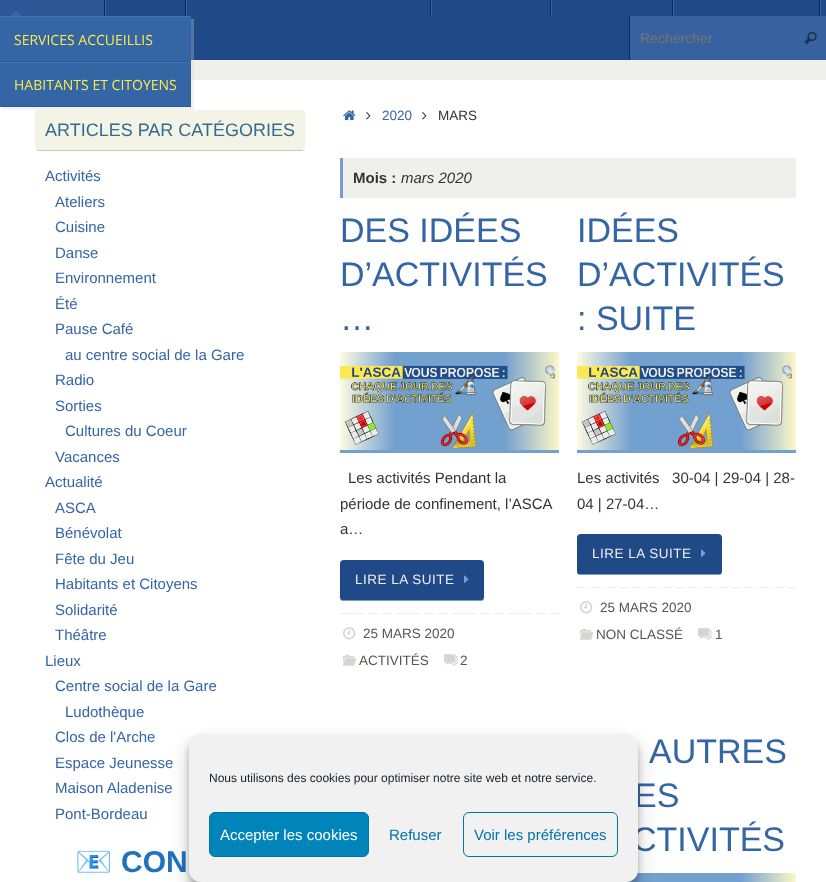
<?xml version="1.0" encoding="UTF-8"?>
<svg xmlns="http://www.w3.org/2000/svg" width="826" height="882">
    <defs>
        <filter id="blur1" x="-50%" y="-200%" width="200%" height="500%"><feGaussianBlur stdDeviation="3"/></filter>
        <filter id="blur2" x="-50%" y="-200%" width="200%" height="500%"><feGaussianBlur stdDeviation="10"/></filter>
    </defs>
    <rect width="100%" height="100%" fill="#EFF0EC"/>
    <rect x="106" y="0" width="720" height="60" fill="#204A87"/>
    <rect x="186" y="0" width="1" height="16" fill="#38629F"/>
    <rect x="185" y="0" width="1" height="16" fill="#022C69"/>
    <rect x="431" y="0" width="1" height="16" fill="#38629F"/>
    <rect x="430" y="0" width="1" height="16" fill="#022C69"/>
    <rect x="551" y="0" width="1" height="16" fill="#38629F"/>
    <rect x="550" y="0" width="1" height="16" fill="#022C69"/>
    <rect x="673" y="0" width="1" height="16" fill="#38629F"/>
    <rect x="672" y="0" width="1" height="16" fill="#022C69"/>
    <rect x="820" y="0" width="1" height="16" fill="#38629F"/>
    <rect x="819" y="0" width="1" height="16" fill="#022C69"/>
    <rect x="0" y="0" width="104" height="16" fill="#2D5794"/>
    <rect x="105" y="0" width="1" height="16" fill="#38629F"/>
    <rect x="104" y="0" width="1" height="16" fill="#022C69"/>
    <rect x="0" y="80" width="826" height="802" fill="#FFFFFF"/>
    <path d="M 3 107 V 110 H 194 V 19 H 191 V 107 Z" fill="#D3D7CF" fill-opacity="0.3"/>
    <path d="M 22 16 H 10 L 16 10 Z" fill="#3465A4"/>
    <rect x="0" y="17" width="191" height="44" fill="#3465A4"/>
    <rect x="0" y="16" width="191" height="1" fill="#4273B2"/>
    <rect x="0" y="61" width="191" height="1" fill="#295A99"/>
    <text x="14" y="45" font-family="Open Sans" font-size="14" fill="#FCE94F">SERVICES ACCUEILLIS</text>
    <rect x="0" y="63" width="191" height="43" fill="#3465A4"/>
    <rect x="0" y="62" width="191" height="1" fill="#4273B2"/>
    <rect x="0" y="106" width="191" height="1" fill="#295A99"/>
    <text x="14" y="90" font-family="Open Sans" font-size="14" fill="#FCE94F">HABITANTS ET CITOYENS</text>
    <rect x="630" y="16" width="196" height="44" fill="#38629F"/>
    <rect x="629" y="16" width="1" height="44" fill="#022C69"/>
    <text x="640" y="43" font-family="Liberation Sans" font-size="14" fill="#757575">Rechercher</text>
    <image x="804" y="31" width="13" height="14" href="img_01.png"/>
    <rect x="35" y="110" width="270" height="41" rx="4" fill="#F3F4E5"/>
    <rect x="37" y="150" width="266" height="1" fill="#CBCCBD"/>
    <text x="45" y="136" font-family="Liberation Sans" font-size="18" fill="#346B8E">ARTICLES PAR CATÉGORIES</text>
    <text x="45" y="181" font-family="Liberation Sans" font-size="15" fill="#3465A4">Activités</text>
    <text font-family="Liberation Sans" font-size="15" fill="#3465A4">
        <tspan x="55" y="207">Ateliers</tspan>
        <tspan x="55" y="232">Cuisine</tspan>
        <tspan x="55" y="258">Danse</tspan>
        <tspan x="55" y="283">Environnement</tspan>
        <tspan x="55" y="309">Été</tspan>
        <tspan x="55" y="334">Pause Café</tspan>
    </text>
    <text x="65" y="360" font-family="Liberation Sans" font-size="15" fill="#3465A4">au centre social de la Gare</text>
    <text font-family="Liberation Sans" font-size="15" fill="#3465A4">
        <tspan x="55" y="385">Radio</tspan>
        <tspan x="55" y="411">Sorties</tspan>
    </text>
    <text x="65" y="436" font-family="Liberation Sans" font-size="15" fill="#3465A4">Cultures du Coeur</text>
    <text x="55" y="462" font-family="Liberation Sans" font-size="15" fill="#3465A4">Vacances</text>
    <text x="45" y="487" font-family="Liberation Sans" font-size="15" fill="#3465A4">Actualité</text>
    <text font-family="Liberation Sans" font-size="15" fill="#3465A4">
        <tspan x="55" y="513">ASCA</tspan>
        <tspan x="55" y="538">Bénévolat</tspan>
        <tspan x="55" y="564">Fête du Jeu</tspan>
        <tspan x="55" y="589">Habitants et Citoyens</tspan>
        <tspan x="55" y="615">Solidarité</tspan>
        <tspan x="55" y="640">Théâtre</tspan>
    </text>
    <text x="45" y="666" font-family="Liberation Sans" font-size="15" fill="#3465A4">Lieux</text>
    <text x="55" y="691" font-family="Liberation Sans" font-size="15" fill="#3465A4">Centre social de la Gare</text>
    <text x="65" y="717" font-family="Liberation Sans" font-size="15" fill="#3465A4">Ludothèque</text>
    <text font-family="Liberation Sans" font-size="15" fill="#3465A4">
        <tspan x="55" y="742">Clos de l'Arche</tspan>
        <tspan x="55" y="768">Espace Jeunesse</tspan>
        <tspan x="55" y="793">Maison Aladenise</tspan>
        <tspan x="55" y="819">Pont-Bordeau</tspan>
    </text>
    <text x="75" y="872" font-family="Noto Color Emoji" font-size="30" font-weight="700" fill="#1E73BE">📧</text>
    <text x="121" y="872" font-family="Liberation Sans" font-size="30" font-weight="700" fill="#1E73BE">CON</text>
    <image x="343" y="110" width="13" height="11" href="img_02.png"/>
    <image x="366" y="112" width="5" height="8" href="img_03.png"/>
    <text x="382" y="120" font-family="Liberation Sans" font-size="13.5" fill="#3465A4">2020</text>
    <image x="422" y="112" width="5" height="8" href="img_03.png"/>
    <text x="438" y="120" font-family="Liberation Sans" font-size="13.5" fill="#333333">MARS</text>
    <rect x="343" y="158" width="453" height="40" fill="#EFF0EC"/>
    <rect x="340" y="158" width="3" height="40" fill="#729FCF"/>
    <text x="353" y="183" font-family="Liberation Sans" font-size="15" font-weight="700" fill="#333333">Mois :</text>
    <text x="401" y="183" font-family="Liberation Sans" font-size="15" font-style="italic" fill="#333333">mars 2020</text>
    <text font-family="Liberation Sans" font-size="34" fill="#3465A4">
        <tspan x="340" y="242">DES IDÉES</tspan>
        <tspan x="340" y="286">D’ACTIVITÉS</tspan>
        <tspan x="340" y="330">…</tspan>
    </text>
    <rect x="340" y="450" width="219" height="3" fill="#73A0CF"/>
    <image x="340" y="352" width="219" height="98" href="img_04.png"/>
    <text x="348" y="483" font-family="Liberation Sans" font-size="15" fill="#333333">Les activités Pendant la</text>
    <text font-family="Liberation Sans" font-size="15" fill="#333333">
        <tspan x="340" y="509">période de confinement, l’ASCA</tspan>
        <tspan x="340" y="534">a…</tspan>
    </text>
    <rect x="340" y="560" width="144" height="41" rx="4" fill="#204A87"/>
    <rect x="342" y="600" width="140" height="1" fill="#729FCF"/>
    <text x="355" y="584" font-family="Liberation Sans" font-size="13.5" letter-spacing="0.5" fill="#EEEEEC">LIRE LA SUITE</text>
    <image x="464" y="575" width="5" height="8" href="img_05.png"/>
    <image x="340" y="613" width="219" height="1" href="img_06.png"/>
    <image x="343" y="627" width="13" height="13" href="img_07.png"/>
    <text x="363" y="638" font-family="Liberation Sans" font-size="13.5" fill="#555753">25 MARS 2020</text>
    <image x="343" y="654" width="14" height="12" href="img_08.png"/>
    <text x="359" y="665" font-family="Liberation Sans" font-size="13.5" fill="#555753">ACTIVITÉS</text>
    <image x="444" y="654" width="14" height="13" href="img_09.png"/>
    <text x="460" y="665" font-family="Liberation Sans" font-size="13.5" fill="#555753">2</text>
    <text font-family="Liberation Sans" font-size="34" fill="#3465A4">
        <tspan x="577" y="242">IDÉES</tspan>
        <tspan x="577" y="286">D’ACTIVITÉS</tspan>
        <tspan x="577" y="330">: SUITE</tspan>
    </text>
    <rect x="577" y="450" width="219" height="3" fill="#73A0CF"/>
    <image x="577" y="352" width="219" height="98" href="img_10.png"/>
    <text font-family="Liberation Sans" font-size="15" fill="#333333" xml:space="preserve"><tspan x="577" y="483">Les activités   30-04 | 29-04 | 28-</tspan><tspan x="577" y="509">04 | 27-04…</tspan></text>
    <rect x="577" y="534" width="145" height="41" rx="4" fill="#204A87"/>
    <rect x="579" y="574" width="141" height="1" fill="#729FCF"/>
    <text x="592" y="558" font-family="Liberation Sans" font-size="13.5" letter-spacing="0.5" fill="#EEEEEC">LIRE LA SUITE</text>
    <image x="701" y="549" width="5" height="8" href="img_05.png"/>
    <image x="577" y="587" width="219" height="1" href="img_06.png"/>
    <image x="580" y="601" width="13" height="13" href="img_07.png"/>
    <text x="600" y="612" font-family="Liberation Sans" font-size="13.5" fill="#555753">25 MARS 2020</text>
    <image x="580" y="628" width="14" height="12" href="img_08.png"/>
    <text x="596" y="639" font-family="Liberation Sans" font-size="13.5" fill="#555753">NON CLASSÉ</text>
    <image x="698" y="628" width="14" height="13" href="img_09.png"/>
    <text x="715" y="639" font-family="Liberation Sans" font-size="13.5" fill="#555753">1</text>
    <text x="649" y="763" font-family="Liberation Sans" font-size="34" fill="#3465A4">AUTRES</text>
    <text x="634" y="807" font-family="Liberation Sans" font-size="34" fill="#3465A4">ES</text>
    <text x="632" y="851" font-family="Liberation Sans" font-size="34" fill="#3465A4">CTIVITÉS</text>
    <image x="626" y="873" width="170" height="9" href="img_11.png"/>
    <rect x="189" y="740" width="449" height="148" rx="12" fill="#000000" fill-opacity="0.23" filter="url(#blur1)"/>
    <rect x="189" y="744" width="449" height="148" rx="12" fill="#000000" fill-opacity="0.19" filter="url(#blur2)"/>
    <rect x="189" y="734" width="449" height="148" rx="12" fill="#F1F1F1"/>
    <text x="209" y="782" font-family="Liberation Sans" font-size="12" fill="#191E23">Nous utilisons des cookies pour optimiser notre site web et notre service.</text>
    <rect x="209.5" y="812.5" width="159" height="44" rx="5.5" fill="#0085BA" stroke="#0073AA"/>
    <text x="220" y="840" font-family="Liberation Sans" font-size="15" fill="#FFFFFF">Accepter les cookies</text>
    <text x="389" y="840" font-family="Liberation Sans" font-size="15" fill="#0073AA">Refuser</text>
    <rect x="463.5" y="812.5" width="154" height="44" rx="5.5" fill="none" stroke="#0073AA"/>
    <text x="474" y="840" font-family="Liberation Sans" font-size="15" fill="#0073AA">Voir les préférences</text>
</svg>
